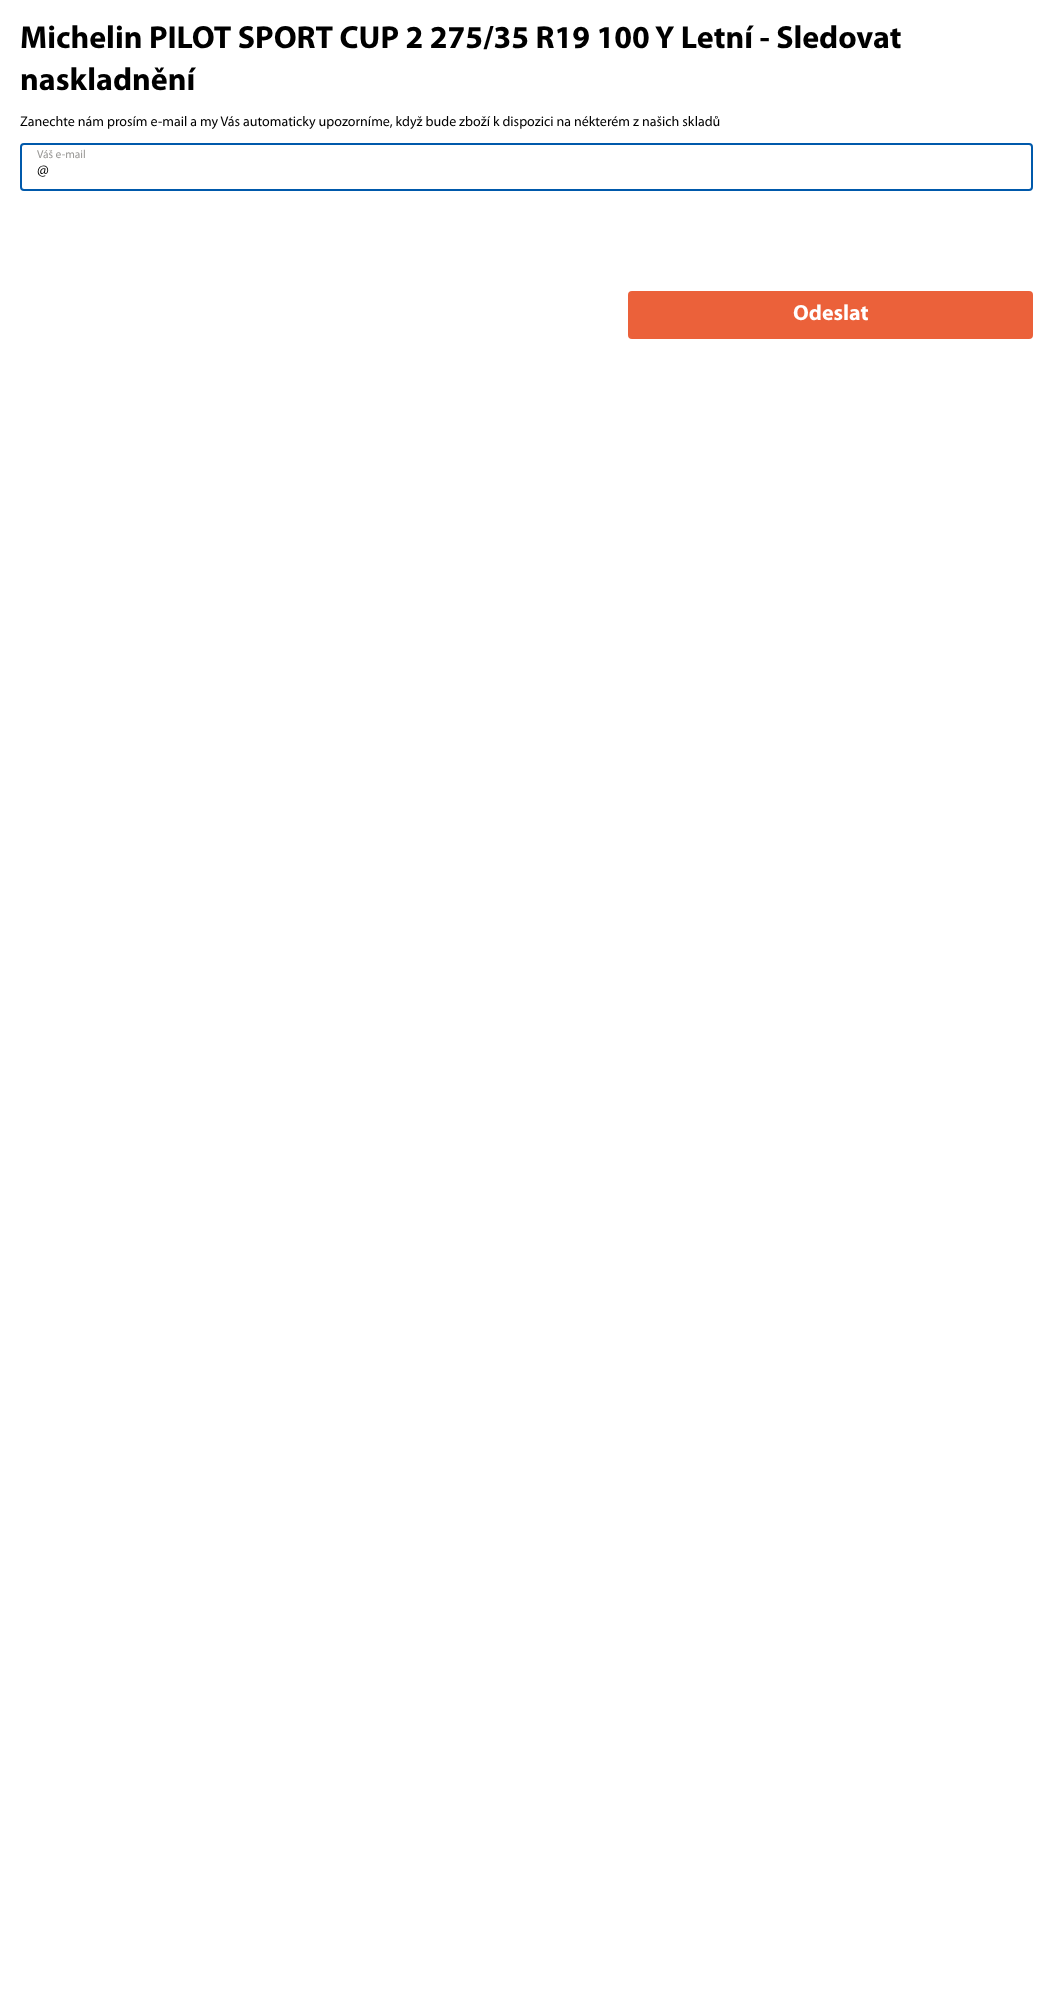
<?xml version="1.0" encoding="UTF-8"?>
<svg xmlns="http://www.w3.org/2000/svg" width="1053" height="1996">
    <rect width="100%" height="100%" fill="#FFFFFF"/>
    <text font-family="Myriad" font-size="32" font-weight="700" fill="#000000">
        <tspan x="20" y="48">Michelin PILOT SPORT CUP 2 275/35 R19 100 Y Letní - Sledovat</tspan>
        <tspan x="20" y="90">naskladnění</tspan>
    </text>
    <text x="20" y="126" font-family="Myriad" font-size="14" fill="#000000">Zanechte nám prosím e-mail a my Vás automaticky upozorníme, když bude zboží k dispozici na nékterém z našich skladů</text>
    <rect x="21" y="144" width="1011" height="46" rx="3" fill="none" stroke="#0059AB" stroke-width="2"/>
    <text x="37" y="158" font-family="Myriad" font-size="11.5" fill="#989795">Váš e-mail</text>
    <text x="37" y="175" font-family="Myriad" font-size="16" fill="#000000">@</text>
    <rect x="628" y="291" width="405" height="48" rx="4" fill="#EB613A"/>
    <text x="793" y="320" font-family="Myriad" font-size="22" font-weight="700" fill="#FFFFFF">Odeslat</text>
</svg>
